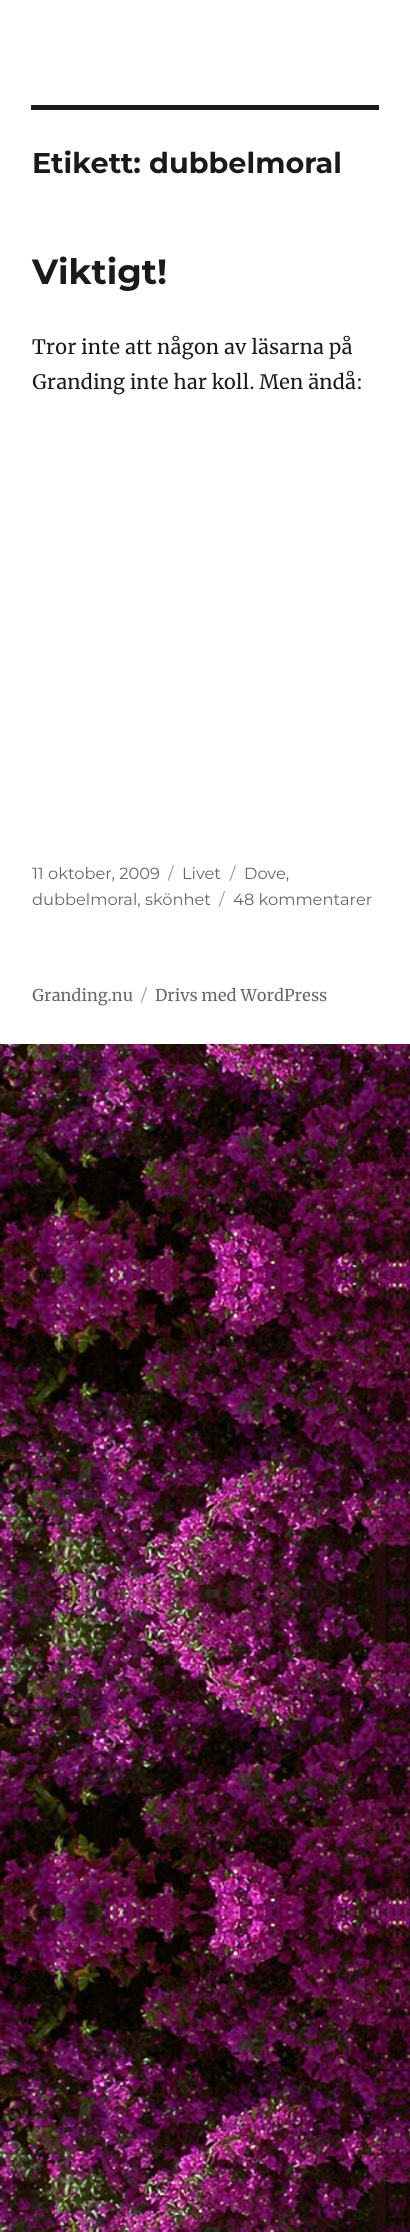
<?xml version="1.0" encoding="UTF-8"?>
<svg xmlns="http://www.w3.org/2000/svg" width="410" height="2232">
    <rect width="100%" height="100%" fill="#FFFFFF"/>
    <image x="0" y="1044" width="410" height="1188" href="img_01.png"/>
    <rect x="31" y="105" width="348" height="5" fill="#1A1A1A"/>
    <text x="32" y="173" font-family="Montserrat" font-size="28.75" font-weight="100" fill="#1A1A1A">Etikett: dubbelmoral</text>
    <text x="32" y="284" font-family="Montserrat" font-size="35" font-weight="100" fill="#1A1A1A">Viktigt!</text>
    <text font-family="Merriweather" font-size="20" fill="#1A1A1A">
        <tspan x="32" y="354">Tror inte att någon av läsarna på</tspan>
        <tspan x="32" y="389">Granding inte har koll. Men ändå:</tspan>
    </text>
    <text x="32" y="879" font-family="'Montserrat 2'" font-size="16.25" font-weight="100" fill="#686868">11 oktober, 2009</text>
    <text x="168" y="879" font-family="'Montserrat 2'" font-size="16.25" font-weight="100" fill="#959595">/</text>
    <text x="182" y="879" font-family="'Montserrat 2'" font-size="16.25" font-weight="100" fill="#686868">Livet</text>
    <text x="230" y="879" font-family="'Montserrat 2'" font-size="16.25" font-weight="100" fill="#959595">/</text>
    <text x="244" y="879" font-family="'Montserrat 2'" font-size="16.25" font-weight="100" fill="#686868">Dove,</text>
    <text x="32" y="905" font-family="'Montserrat 2'" font-size="16.25" font-weight="100" fill="#686868">dubbelmoral, skönhet</text>
    <text x="219" y="905" font-family="'Montserrat 2'" font-size="16.25" font-weight="100" fill="#959595">/</text>
    <text x="233" y="905" font-family="'Montserrat 2'" font-size="16.25" font-weight="100" fill="#686868">48 kommentarer</text>
    <text x="32" y="1001" font-family="Merriweather" font-size="16.25" fill="#686868">Granding.nu</text>
    <text x="141" y="1001" font-family="'Montserrat 2'" font-size="16.25" font-weight="100" fill="#959595">/</text>
    <text x="155" y="1001" font-family="Merriweather" font-size="16.25" fill="#686868">Drivs med WordPress</text>
</svg>
